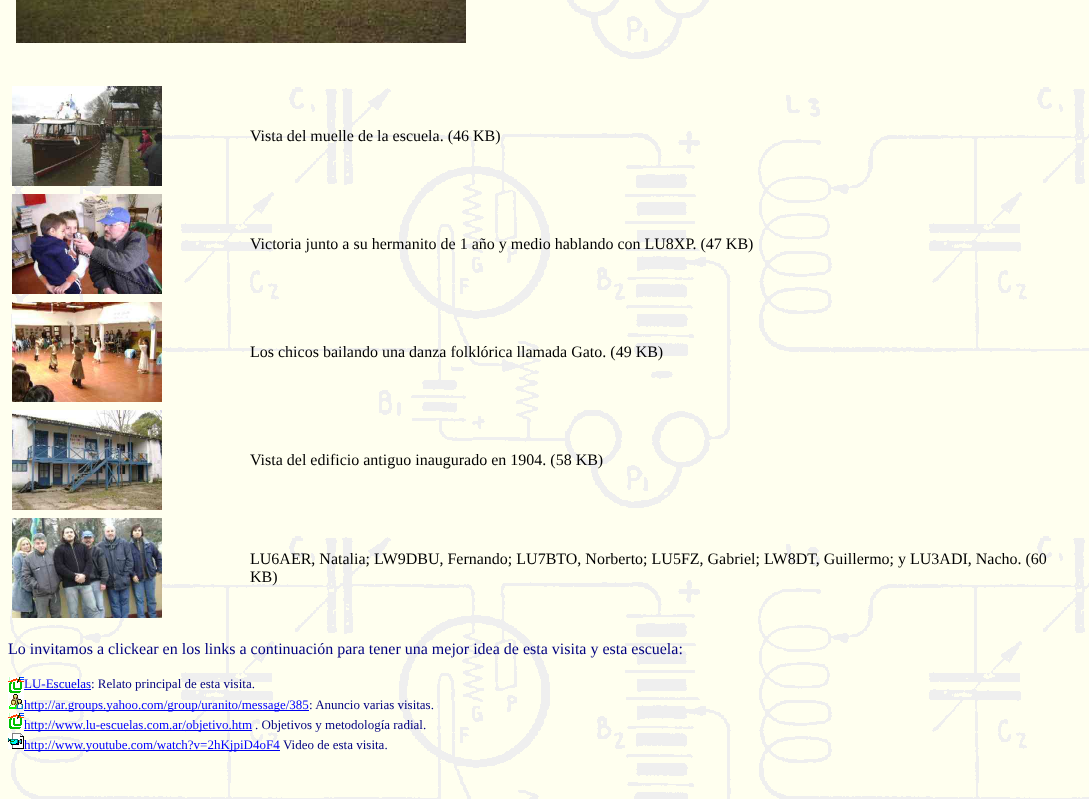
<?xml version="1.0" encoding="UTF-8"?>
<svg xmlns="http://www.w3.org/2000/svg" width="1089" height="799">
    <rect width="100%" height="100%" fill="#FFFFFF"/>
    <image x="0" y="0" width="1089" height="799" href="img_01.png"/>
    <image x="16" y="0" width="450" height="43" href="img_02.png"/>
    <image x="12" y="86" width="150" height="100" href="img_03.png"/>
    <text x="250" y="141" font-family="Liberation Serif" font-size="16" fill="#000000">Vista del muelle de la escuela. (46 KB)</text>
    <image x="12" y="194" width="150" height="100" href="img_04.png"/>
    <text x="250" y="249" font-family="Liberation Serif" font-size="16" fill="#000000">Victoria junto a su hermanito de 1 año y medio hablando con LU8XP. (47 KB)</text>
    <image x="12" y="302" width="150" height="100" href="img_05.png"/>
    <text x="250" y="357" font-family="Liberation Serif" font-size="16" fill="#000000">Los chicos bailando una danza folklórica llamada Gato. (49 KB)</text>
    <image x="12" y="410" width="150" height="100" href="img_06.png"/>
    <text x="250" y="465" font-family="Liberation Serif" font-size="16" fill="#000000">Vista del edificio antiguo inaugurado en 1904. (58 KB)</text>
    <image x="12" y="518" width="150" height="100" href="img_07.png"/>
    <text font-family="Liberation Serif" font-size="16" fill="#000000">
        <tspan x="250" y="564">LU6AER, Natalia; LW9DBU, Fernando; LU7BTO, Norberto; LU5FZ, Gabriel; LW8DT, Guillermo; y LU3ADI, Nacho. (60</tspan>
        <tspan x="250" y="582">KB)</tspan>
    </text>
    <text x="8" y="654" font-family="Liberation Serif" font-size="16" fill="#000080">Lo invitamos a clickear en los links a continuación para tener una mejor idea de esta visita y esta escuela:</text>
    <image x="8" y="677" width="16" height="16" href="img_08.png"/>
    <text x="24" y="688" font-family="Liberation Serif" font-size="13" fill="#0000EE">LU-Escuelas</text>
    <text x="91" y="688" font-family="Liberation Serif" font-size="13" fill="#000080">: Relato principal de esta visita.</text>
    <rect x="24" y="689" width="67" height="1" fill="#0000EE"/>
    <image x="8" y="693" width="16" height="16" href="img_09.png"/>
    <rect x="24" y="710" width="285" height="1" fill="#0000EE"/>
    <text x="24" y="709" font-family="Liberation Serif" font-size="13" fill="#0000FF">http://ar.groups.yahoo.com/group/uranito/message/385</text>
    <text x="309" y="709" font-family="Liberation Serif" font-size="13" fill="#000080">: Anuncio varias visitas.</text>
    <image x="8" y="713" width="16" height="16" href="img_08.png"/>
    <rect x="24" y="730" width="228" height="1" fill="#0000EE"/>
    <text x="24" y="729" font-family="Liberation Serif" font-size="13" fill="#0000FF">http://www.lu-escuelas.com.ar/objetivo.htm</text>
    <text x="255" y="729" font-family="Liberation Serif" font-size="13" fill="#000080">. Objetivos y metodología radial.</text>
    <image x="8" y="733" width="16" height="16" href="img_10.png"/>
    <rect x="24" y="750" width="256" height="1" fill="#0000EE"/>
    <text x="24" y="749" font-family="Liberation Serif" font-size="13" fill="#0000FF">http://www.youtube.com/watch?v=2hKjpiD4oF4</text>
    <text x="283" y="749" font-family="Liberation Serif" font-size="13" fill="#000080">Video de esta visita.</text>
</svg>
